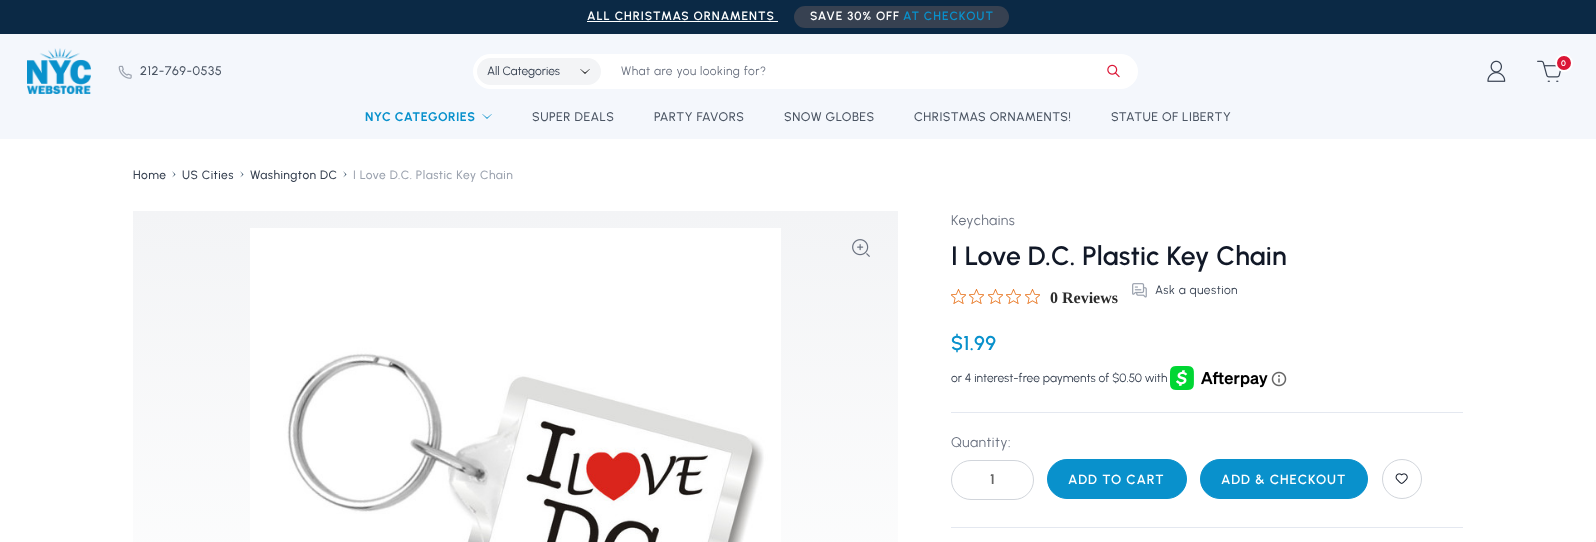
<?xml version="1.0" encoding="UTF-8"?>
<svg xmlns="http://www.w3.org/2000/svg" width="1596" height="542">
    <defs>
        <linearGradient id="g1" gradientUnits="userSpaceOnUse" x1="516" y1="211" x2="516" y2="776"><stop offset="0" stop-color="#F3F4F6"/><stop offset="0.85" stop-color="#FFFFFF"/></linearGradient>
    </defs>
    <rect width="100%" height="100%" fill="#FFFFFF"/>
    <rect x="0" y="34" width="1596" height="105" fill="#F4F7FC"/>
    <rect x="0" y="0" width="1596" height="34" fill="#0B2945"/>
    <text x="587" y="20" font-family="Urbanist" font-size="12" font-weight="600" letter-spacing="1" fill="#FFFFFF">ALL CHRISTMAS ORNAMENTS</text>
    <rect x="587" y="21" width="191" height="1" fill="#FFFFFF"/>
    <rect x="794" y="6" width="215" height="22" rx="11" fill="#374151"/>
    <text x="810" y="20" font-family="Urbanist" font-size="12" font-weight="600" letter-spacing="1" fill="#FFFFFF">SAVE 30% OFF</text>
    <text x="903" y="20" font-family="Urbanist" font-size="12" font-weight="600" letter-spacing="1" fill="#0991CC">AT CHECKOUT</text>
    <image x="1487" y="60" width="19" height="22" href="img_01.png"/>
    <image x="1537" y="60" width="24" height="22" href="img_02.png"/>
    <circle cx="1564" cy="63" r="8" fill="#DB1636" stroke="#FFFFFF" stroke-width="2"/>
    <text x="1561" y="66" font-family="Urbanist" font-size="8" font-weight="700" fill="#FFFFFF">0</text>
    <image x="27" y="48" width="64" height="46" href="img_03.png"/>
    <image x="118" y="65" width="14" height="14" href="img_04.png"/>
    <text x="140" y="75" font-family="Urbanist" font-size="12.5" font-weight="500" letter-spacing="0.5" fill="#4B5563">212-769-0535</text>
    <rect x="473" y="54" width="665" height="35" rx="17.5" fill="#FFFFFF"/>
    <rect x="477" y="58" width="124" height="27" rx="13.5" fill="#F3F4F6"/>
    <text x="487" y="75" font-family="Urbanist" font-size="12" fill="#374151">All Categories</text>
    <image x="580" y="69" width="10" height="5" href="img_05.png"/>
    <text x="621" y="75" font-family="Urbanist" font-size="12" letter-spacing="0.5" fill="#6B7280">What are you looking for?</text>
    <image x="1107" y="64" width="13" height="14" href="img_06.png"/>
    <text x="365" y="121" font-family="Urbanist" font-size="12.5" font-weight="700" letter-spacing="0.5" fill="#0991CC">NYC CATEGORIES</text>
    <image x="482" y="114" width="10" height="5" href="img_07.png"/>
    <text x="532" y="121" font-family="Urbanist" font-size="12.5" font-weight="500" letter-spacing="0.5" fill="#4B5563">SUPER DEALS</text>
    <text x="654" y="121" font-family="Urbanist" font-size="12.5" font-weight="500" letter-spacing="0.5" fill="#4B5563">PARTY FAVORS</text>
    <text x="784" y="121" font-family="Urbanist" font-size="12.5" font-weight="500" letter-spacing="0.5" fill="#4B5563">SNOW GLOBES</text>
    <text x="914" y="121" font-family="Urbanist" font-size="12.5" font-weight="500" letter-spacing="0.5" fill="#4B5563">CHRISTMAS ORNAMENTS!</text>
    <text x="1111" y="121" font-family="Urbanist" font-size="12.5" font-weight="500" letter-spacing="0.5" fill="#4B5563">STATUE OF LIBERTY</text>
    <text x="133" y="179" font-family="Urbanist" font-size="12" font-weight="500" letter-spacing="0.5" fill="#374151">Home</text>
    <path d="M 172 171 L 174.5 174.5 L 172 177.5 L 175.5 174.5 Z" fill="#0B2945" fill-rule="evenodd"/>
    <text x="182" y="179" font-family="Urbanist" font-size="12" font-weight="500" letter-spacing="0.5" fill="#374151">US Cities</text>
    <path d="M 240 171 L 242.5 174.5 L 240 177.5 L 243.5 174.5 Z" fill="#0B2945" fill-rule="evenodd"/>
    <text x="250" y="179" font-family="Urbanist" font-size="12" font-weight="500" letter-spacing="0.5" fill="#374151">Washington DC</text>
    <path d="M 343 171 L 345.5 174.5 L 343 177.5 L 346.5 174.5 Z" fill="#0B2945" fill-rule="evenodd"/>
    <text x="353" y="179" font-family="Urbanist" font-size="12" font-weight="500" letter-spacing="0.5" fill="#9CA3AF">I Love D.C. Plastic Key Chain</text>
    <rect x="133" y="211" width="765" height="331" fill="url(#g1)"/>
    <image x="250" y="228" width="531" height="314" href="img_08.png"/>
    <image x="852" y="239" width="18" height="18" href="img_09.png"/>
    <rect x="951" y="412" width="512" height="1" fill="#E4E8F0"/>
    <text x="951" y="225" font-family="Urbanist" font-size="14" letter-spacing="0.5" fill="#6B7280">Keychains</text>
    <text x="951" y="265" font-family="Urbanist" font-size="26.6" font-weight="600" letter-spacing="0.25" fill="#111827">I Love D.C. Plastic Key Chain</text>
    <image x="951" y="289" width="15" height="15" href="img_10.png"/>
    <image x="969" y="289" width="15" height="15" href="img_10.png"/>
    <image x="988" y="289" width="15" height="15" href="img_10.png"/>
    <image x="1006" y="289" width="15" height="15" href="img_10.png"/>
    <image x="1025" y="289" width="15" height="15" href="img_10.png"/>
    <text x="1050" y="303" font-family="Liberation Serif" font-size="16" font-weight="700" fill="#2C2C2C">0 Reviews</text>
    <image x="1132" y="283" width="15" height="15" href="img_11.png"/>
    <text x="1155" y="294" font-family="Urbanist" font-size="12" letter-spacing="0.5" fill="#374151">Ask a question</text>
    <text x="951" y="350" font-family="Urbanist" font-size="20" font-weight="600" letter-spacing="0.25" fill="#0991CC">$1.99</text>
    <text x="951" y="382" font-family="Urbanist" font-size="12" fill="#374151">or 4 interest-free payments of $0.50 with</text>
    <image x="1170" y="366" width="98" height="24" href="img_12.png"/>
    <image x="1271" y="371" width="16" height="16" href="img_13.png"/>
    <rect x="951" y="527" width="512" height="1" fill="#E4E8F0"/>
    <text x="951" y="447" font-family="Urbanist" font-size="14" letter-spacing="0.5" fill="#6B7280">Quantity:</text>
    <rect x="951.5" y="460.5" width="82" height="39" rx="19.5" fill="none" stroke="#D1D5DB"/>
    <text x="990" y="484" font-family="Urbanist" font-size="14" font-weight="700" letter-spacing="0.5" fill="#666666">1</text>
    <rect x="1047.5" y="459.5" width="139" height="39" rx="19.5" fill="#0991CC" stroke="#0991CC"/>
    <text x="1068" y="484" font-family="Urbanist" font-size="13.25" font-weight="600" letter-spacing="1" fill="#FFFFFF">ADD TO CART</text>
    <rect x="1200.5" y="459.5" width="167" height="39" rx="19.5" fill="#0991CC" stroke="#0991CC"/>
    <text x="1221" y="484" font-family="Urbanist" font-size="13.25" font-weight="600" letter-spacing="1" fill="#FFFFFF">ADD &amp; CHECKOUT</text>
    <circle cx="1402" cy="479" r="19.5" fill="none" stroke="#D1D5DB"/>
    <image x="1395" y="473" width="13" height="11" href="img_14.png"/>
    <rect x="1594" y="540" width="2" height="2" fill="#F5F5F5"/>
</svg>
